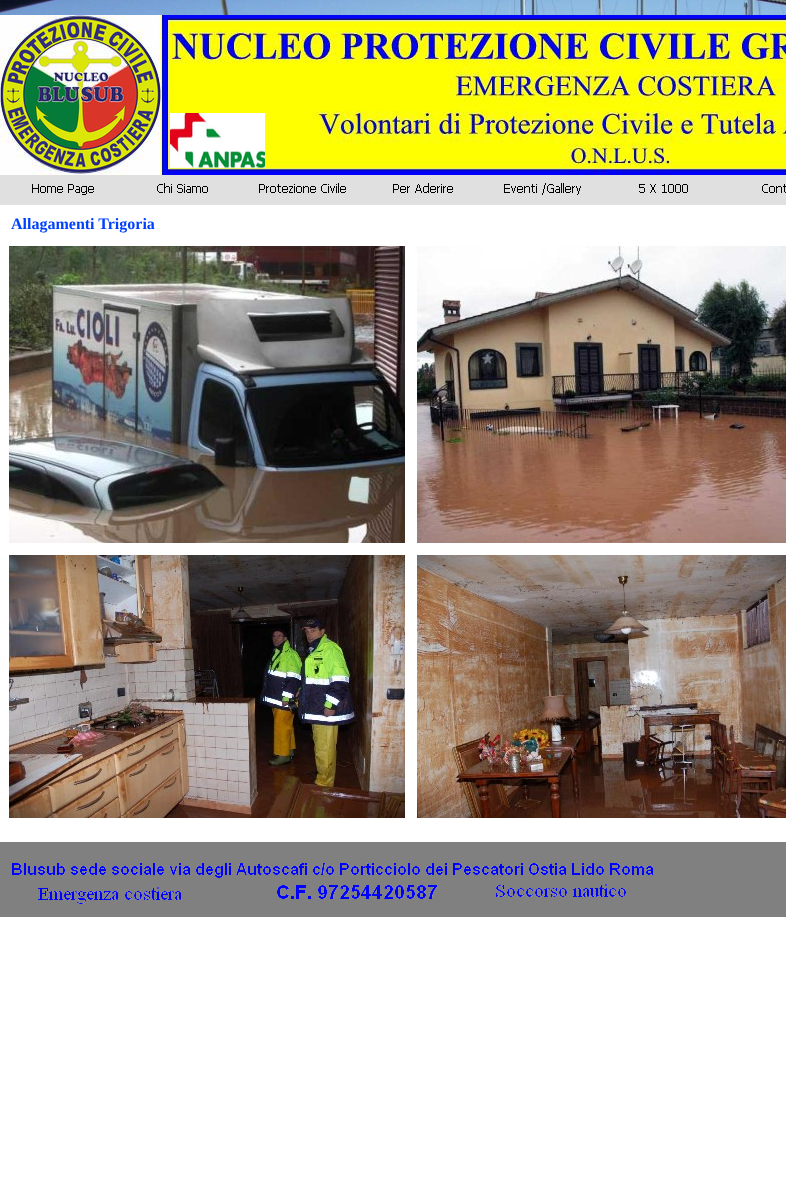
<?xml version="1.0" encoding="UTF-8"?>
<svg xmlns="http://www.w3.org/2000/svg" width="786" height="1181">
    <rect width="100%" height="100%" fill="#FFFFFF"/>
    <image x="0" y="0" width="786" height="15" href="img_01.png"/>
    <image x="0" y="15" width="786" height="160" href="img_02.png"/>
    <rect x="0" y="175" width="786" height="30" fill="#E0E0E0"/>
    <image x="32" y="184" width="62" height="11" href="img_03.png"/>
    <image x="157" y="183" width="51" height="10" href="img_04.png"/>
    <image x="259" y="183" width="87" height="10" href="img_05.png"/>
    <image x="393" y="183" width="60" height="10" href="img_06.png"/>
    <image x="504" y="183" width="77" height="12" href="img_07.png"/>
    <image x="639" y="184" width="49" height="9" href="img_08.png"/>
    <image x="762" y="184" width="24" height="9" href="img_09.png"/>
    <text x="11" y="229" font-family="Liberation Serif" font-size="16" font-weight="700" fill="#0040FF">Allagamenti Trigoria</text>
    <image x="9" y="246" width="396" height="297" href="img_10.png"/>
    <image x="417" y="246" width="369" height="297" href="img_11.png"/>
    <image x="9" y="555" width="396" height="263" href="img_12.png"/>
    <image x="417" y="555" width="369" height="263" href="img_13.png"/>
    <rect x="0" y="842" width="786" height="75" fill="#808080"/>
    <image x="12" y="863" width="642" height="41" href="img_14.png"/>
</svg>
